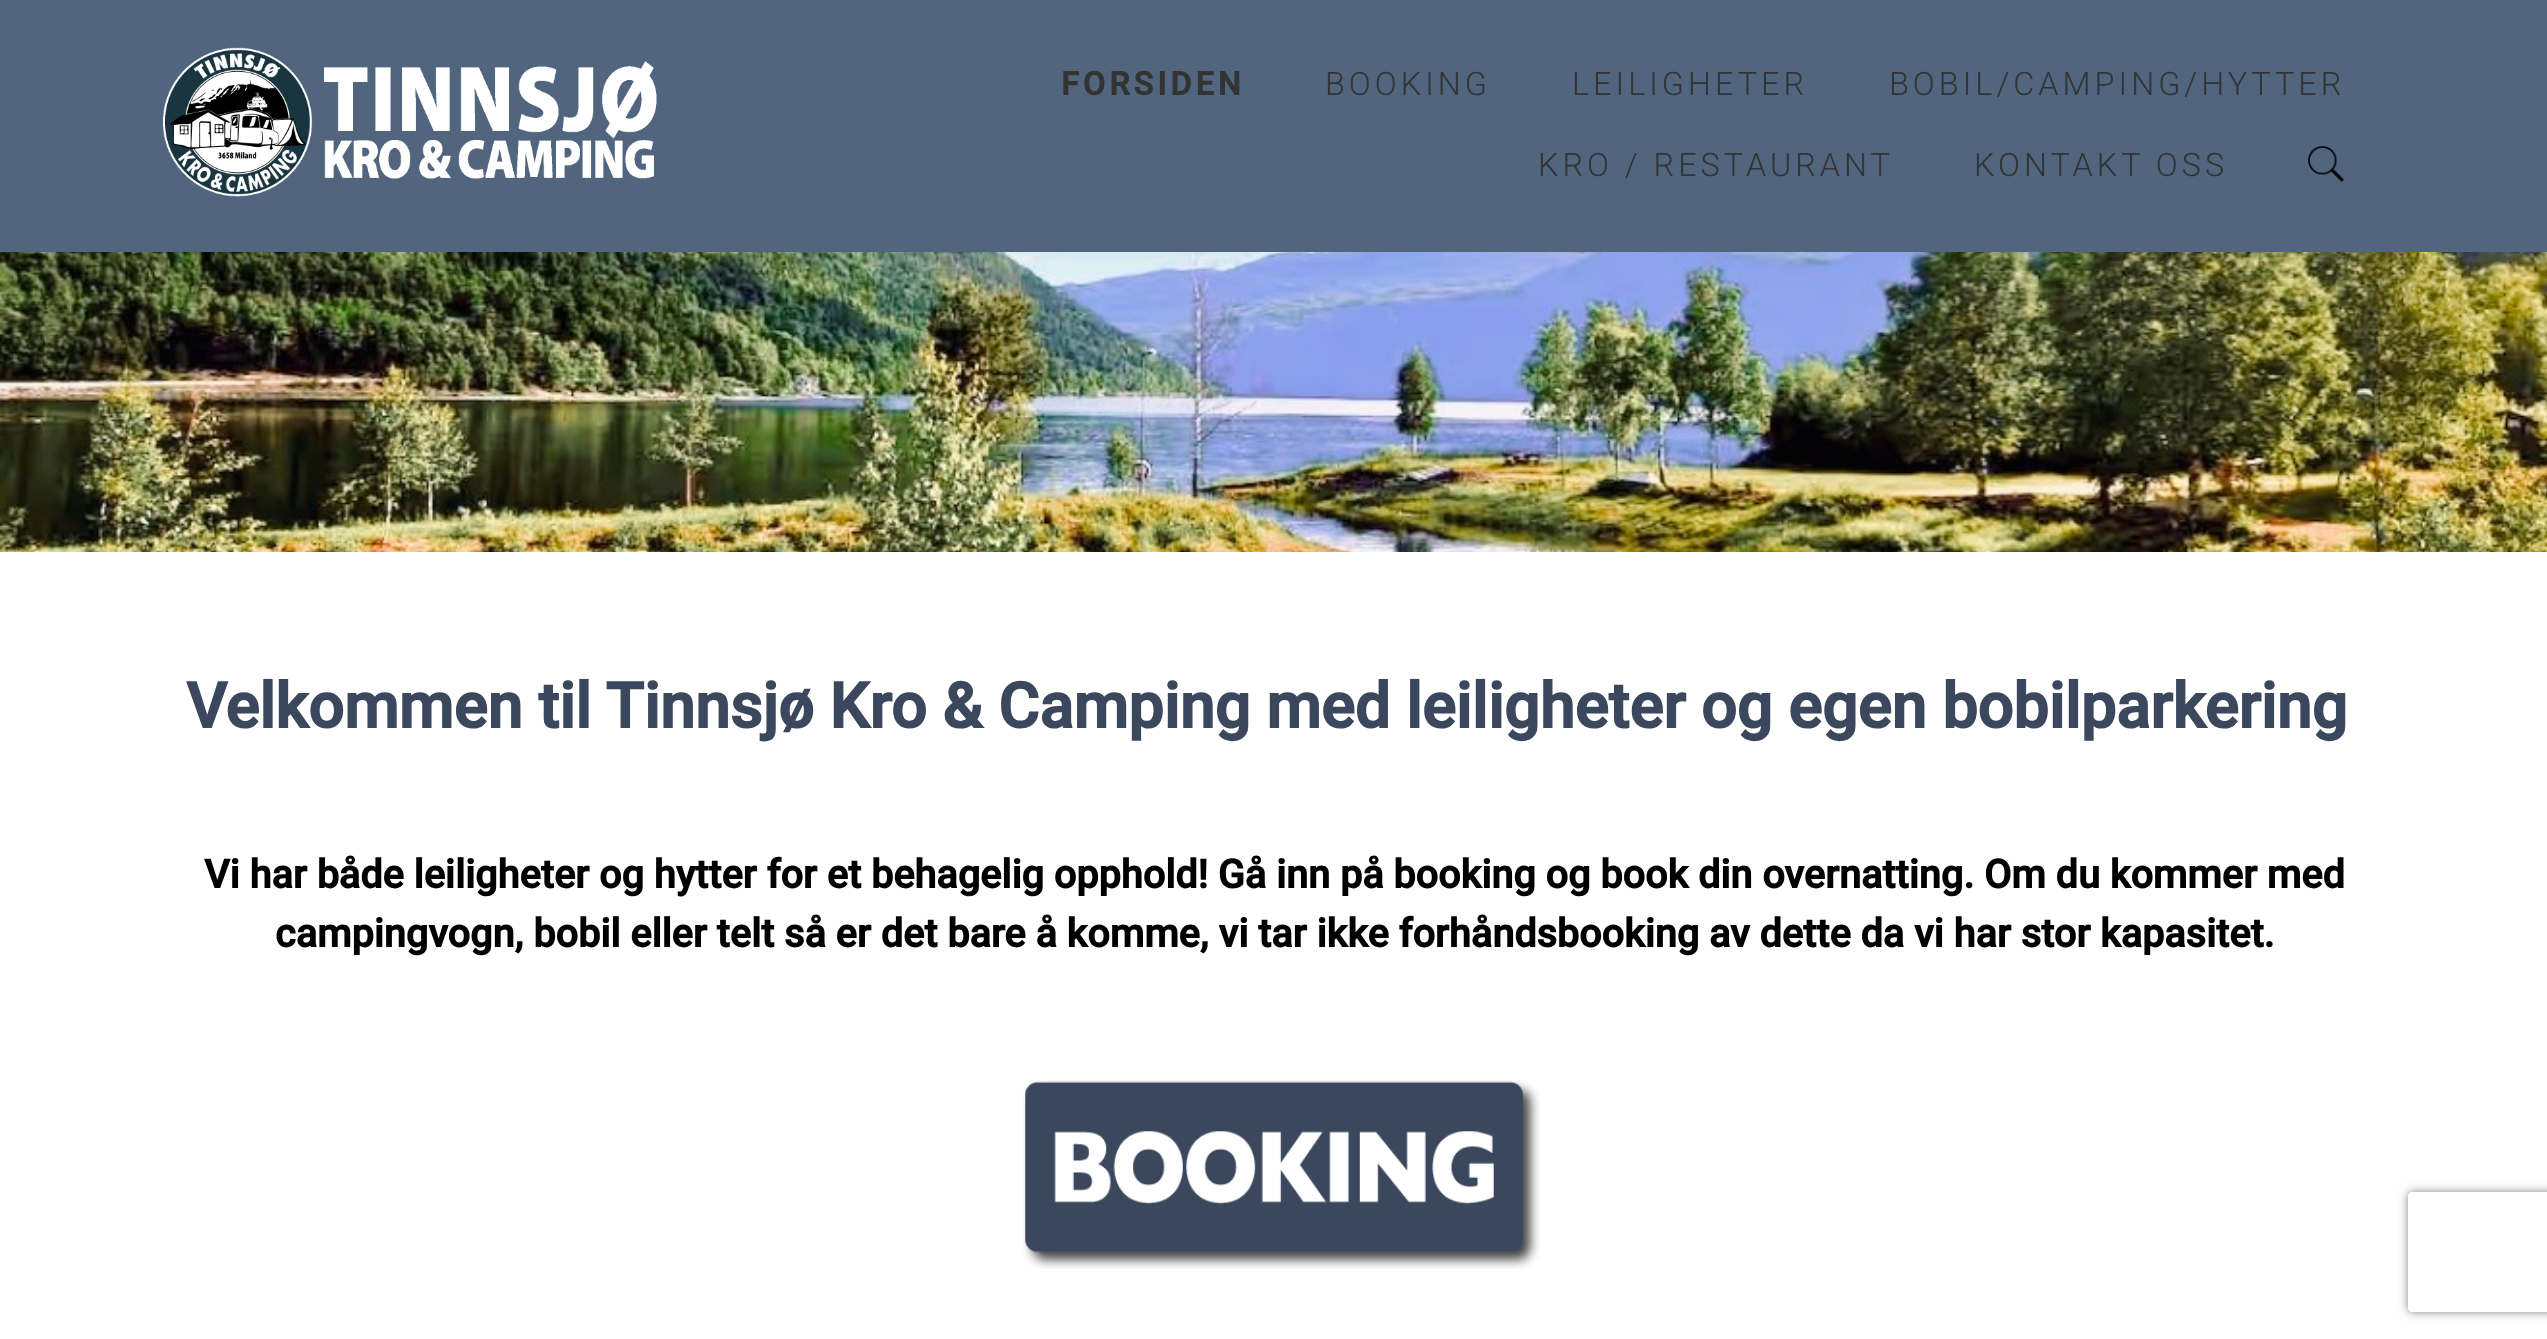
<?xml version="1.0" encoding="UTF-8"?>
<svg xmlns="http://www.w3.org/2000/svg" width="2547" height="1339">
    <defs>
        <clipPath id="clip1"><path d="M 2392 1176 H 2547 V 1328 H 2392 Z M 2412 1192 H 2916 C 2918 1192 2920 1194 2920 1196 V 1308 C 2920 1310 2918 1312 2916 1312 H 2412 C 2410 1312 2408 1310 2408 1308 V 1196 C 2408 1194 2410 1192 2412 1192 Z" clip-rule="evenodd"/></clipPath>
        <filter id="blur1" x="-50%" y="-200%" width="200%" height="500%"><feGaussianBlur stdDeviation="5"/></filter>
    </defs>
    <rect width="100%" height="100%" fill="#51657F"/>
    <image x="163" y="47" width="494" height="150" href="img_01.png"/>
    <text x="1061" y="95" font-family="Roboto" font-size="32.4" font-weight="700" letter-spacing="4" fill="#333333">FORSIDEN</text>
    <text x="1325" y="95" font-family="Roboto" font-size="32.4" font-weight="300" letter-spacing="4" fill="#333333">BOOKING</text>
    <text x="1572" y="95" font-family="Roboto" font-size="32.4" font-weight="300" letter-spacing="4" fill="#333333">LEILIGHETER</text>
    <text x="1889" y="95" font-family="Roboto" font-size="32.4" font-weight="300" letter-spacing="4" fill="#333333">BOBIL/CAMPING/HYTTER</text>
    <text x="1538" y="176" font-family="Roboto" font-size="32.4" font-weight="300" letter-spacing="4" fill="#333333">KRO / RESTAURANT</text>
    <text x="1974" y="176" font-family="Roboto" font-size="32.4" font-weight="300" letter-spacing="4" fill="#333333">KONTAKT OSS</text>
    <image x="2308" y="146" width="36" height="36" href="img_02.png"/>
    <image x="0" y="252" width="2547" height="300" href="img_03.png"/>
    <rect x="0" y="552" width="2547" height="787" fill="#FFFFFF"/>
    <text x="186" y="728" font-family="Roboto" font-size="63" font-weight="700" fill="#3B475D">Velkommen til Tinnsjø Kro &amp; Camping med leiligheter og egen bobilparkering</text>
    <text x="204" y="888" font-family="Roboto" font-size="39.6" font-weight="700" fill="#000000">Vi har både leiligheter og hytter for et behagelig opphold! Gå inn på booking og book din overnatting. Om du kommer med</text>
    <text x="275" y="947" font-family="Roboto" font-size="39.6" font-weight="700" fill="#000000">campingvogn, bobil eller telt så er det bare å komme, vi tar ikke forhåndsbooking av dette da vi har stor kapasitet.</text>
    <image x="1023" y="1080" width="517" height="189" href="img_04.png"/>
    <g clip-path="url(#clip1)">
        <rect x="2408" y="1192" width="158" height="120" rx="4" fill="#808080" filter="url(#blur1)"/>
    </g>
</svg>
